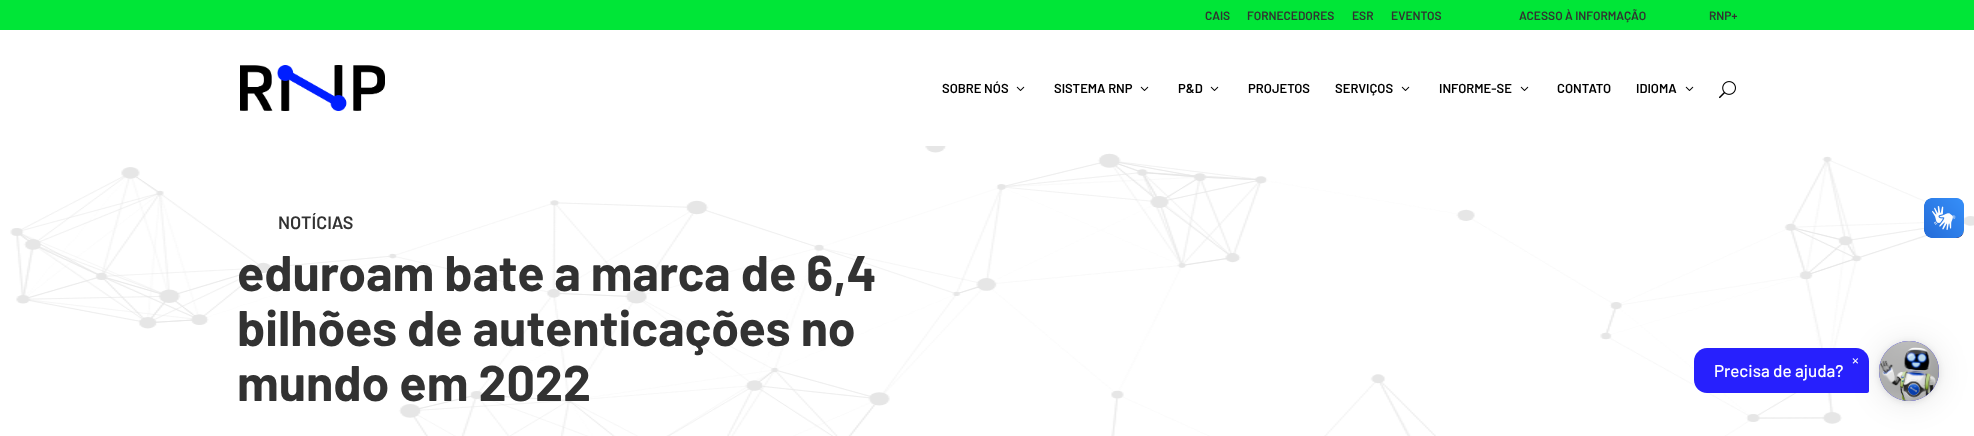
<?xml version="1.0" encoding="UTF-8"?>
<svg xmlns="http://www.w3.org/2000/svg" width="1974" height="436">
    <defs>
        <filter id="blur1" x="-50%" y="-200%" width="200%" height="500%"><feGaussianBlur stdDeviation="16"/></filter>
        <filter id="blur2" x="-50%" y="-200%" width="200%" height="500%"><feGaussianBlur stdDeviation="3"/></filter>
    </defs>
    <rect width="100%" height="100%" fill="#FFFFFF"/>
    <rect x="0" y="0" width="1974" height="30" fill="#00E637"/>
    <text x="1205" y="20" font-family="Barlow" font-size="12" font-weight="600" fill="#323232">CAIS</text>
    <text x="1247" y="20" font-family="Barlow" font-size="12" font-weight="600" fill="#323232">FORNECEDORES</text>
    <text x="1352" y="20" font-family="Barlow" font-size="12" font-weight="600" fill="#323232">ESR</text>
    <text x="1391" y="20" font-family="Barlow" font-size="12" font-weight="600" fill="#323232">EVENTOS</text>
    <text x="1519" y="20" font-family="Barlow" font-size="12" font-weight="600" fill="#323232">ACESSO À INFORMAÇÃO</text>
    <text x="1709" y="20" font-family="Barlow" font-size="12" font-weight="600" fill="#323232">RNP+</text>
    <image x="240" y="65" width="145" height="46" href="img_01.png"/>
    <text x="942" y="93" font-family="Barlow" font-size="13" font-weight="600" fill="#000000">SOBRE NÓS</text>
    <image x="1016" y="86" width="9" height="5" href="img_02.png"/>
    <text x="1054" y="93" font-family="Barlow" font-size="13" font-weight="600" fill="#000000">SISTEMA RNP</text>
    <image x="1140" y="86" width="9" height="5" href="img_02.png"/>
    <text x="1178" y="93" font-family="Barlow" font-size="13" font-weight="600" fill="#000000">P&amp;D</text>
    <image x="1210" y="86" width="9" height="5" href="img_02.png"/>
    <text x="1248" y="93" font-family="Barlow" font-size="13" font-weight="600" fill="#000000">PROJETOS</text>
    <text x="1335" y="93" font-family="Barlow" font-size="13" font-weight="600" fill="#000000">SERVIÇOS</text>
    <image x="1401" y="86" width="9" height="5" href="img_02.png"/>
    <text x="1439" y="93" font-family="Barlow" font-size="13" font-weight="600" fill="#000000">INFORME-SE</text>
    <image x="1520" y="86" width="9" height="5" href="img_02.png"/>
    <text x="1557" y="93" font-family="Barlow" font-size="13" font-weight="600" fill="#000000">CONTATO</text>
    <text x="1636" y="93" font-family="Barlow" font-size="13" font-weight="600" fill="#000000">IDIOMA</text>
    <image x="1685" y="86" width="9" height="5" href="img_02.png"/>
    <image x="1719" y="81" width="17" height="18" href="img_03.png"/>
    <image x="10" y="146" width="1964" height="290" href="img_04.png"/>
    <text x="278" y="229" font-family="Barlow" font-size="18" font-weight="600" fill="#323232">NOTÍCIAS</text>
    <text font-family="Barlow" font-size="50" font-weight="700" fill="#323232">
        <tspan x="237" y="291">eduroam bate a marca de 6,4</tspan>
        <tspan x="237" y="346">bilhões de autenticações no</tspan>
        <tspan x="237" y="401">mundo em 2022</tspan>
    </text>
    <image x="1924" y="198" width="40" height="40" href="img_05.png"/>
    <image x="1924" y="198" width="40" height="40" href="img_06.png"/>
    <path d="M 1707 348 H 1856 C 1863 348 1869 354 1869 361 V 391 C 1869 392 1868 393 1867 393 H 1707 C 1700 393 1694 387 1694 380 V 361 C 1694 354 1700 348 1707 348 Z" fill="#2720FD"/>
    <text x="1852" y="366" font-family="Barlow" font-size="16" fill="#FFFFFF">×</text>
    <text x="1714" y="377" font-family="Barlow" font-size="17" font-weight="500" fill="#FFFFFF">Precisa de ajuda?</text>
    <rect x="1879" y="343" width="60" height="60" rx="30" fill="#000000" fill-opacity="0.1" filter="url(#blur1)"/>
    <rect x="1879" y="342" width="60" height="60" rx="30" fill="#000000" fill-opacity="0.1" filter="url(#blur2)"/>
    <circle cx="1909" cy="371" r="30" fill="#2720FD"/>
    <image x="1879" y="341" width="60" height="60" href="img_07.png"/>
</svg>
